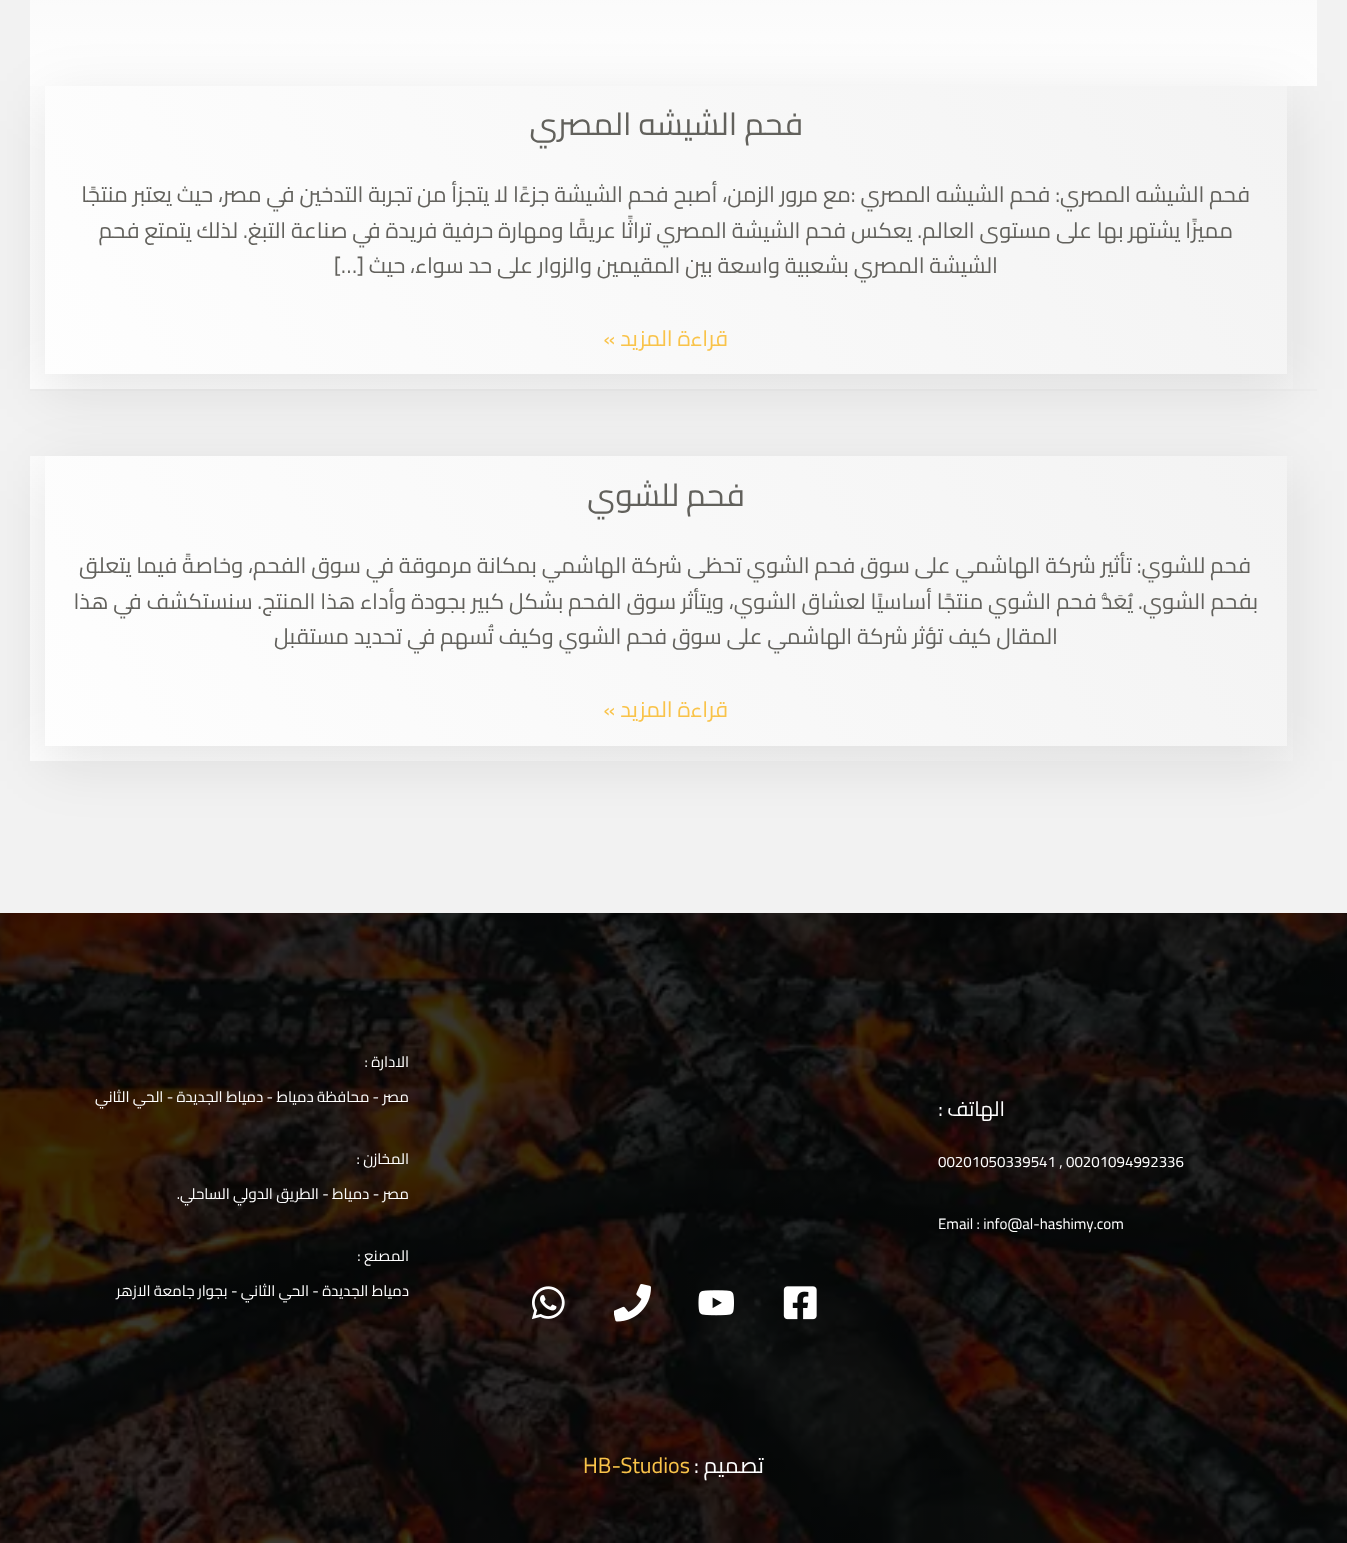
<?xml version="1.0" encoding="UTF-8"?>
<svg xmlns="http://www.w3.org/2000/svg" width="1347" height="1543">
    <defs>
        <linearGradient id="g1" gradientUnits="userSpaceOnUse" x1="674" y1="86" x2="674" y2="-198"><stop offset="0" stop-color="#FEFEFE"/><stop offset="1" stop-color="#F3F3F3"/></linearGradient>
        <linearGradient id="g2" gradientUnits="userSpaceOnUse" x1="125" y1="554" x2="1222" y2="-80"><stop offset="0" stop-color="#FEFEFE"/><stop offset="1" stop-color="#F3F3F3"/></linearGradient>
        <clipPath id="clip1"><path d="M 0 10 H 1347 V 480 H 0 Z M 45 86 H 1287 V 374 H 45 Z" clip-rule="evenodd"/></clipPath>
        <filter id="blur1" x="-50%" y="-200%" width="200%" height="500%"><feGaussianBlur stdDeviation="30"/></filter>
        <linearGradient id="g3" gradientUnits="userSpaceOnUse" x1="125" y1="925" x2="1222" y2="292"><stop offset="0" stop-color="#FEFEFE"/><stop offset="1" stop-color="#F3F3F3"/></linearGradient>
        <clipPath id="clip2"><path d="M 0 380 H 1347 V 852 H 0 Z M 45 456 H 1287 V 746 H 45 Z" clip-rule="evenodd"/></clipPath>
    </defs>
    <rect width="100%" height="100%" fill="#F2F2F2"/>
    <rect x="30" y="0" width="1287" height="86" fill="url(#g1)"/>
    <rect x="30" y="86" width="1263" height="303" fill="url(#g2)"/>
    <rect x="30" y="389" width="1287" height="2" fill="#EEEEEE"/>
    <g clip-path="url(#clip1)">
        <rect x="45" y="101" width="1242" height="288" fill="#000000" fill-opacity="0.1" filter="url(#blur1)"/>
    </g>
    <text x="803" y="135" font-family="Cairo" font-size="31.5" direction="rtl" fill="#62615C">فحم الشيشه المصري</text>
    <text x="1250" y="202" font-family="Cairo" font-size="21.9" direction="rtl" fill="#62615C">فحم الشيشه المصري: فحم الشيشه المصري :مع مرور الزمن، أصبح فحم الشيشة جزءًا لا يتجزأ من تجربة التدخين في مصر، حيث يعتبر منتجًا</text>
    <text x="1233" y="238" font-family="Cairo" font-size="21.9" direction="rtl" fill="#62615C">مميزًا يشتهر بها على مستوى العالم. يعكس فحم الشيشة المصري تراثًا عريقًا ومهارة حرفية فريدة في صناعة التبغ. لذلك يتمتع فحم</text>
    <text x="998" y="273" font-family="Cairo" font-size="21.9" direction="rtl" fill="#62615C">الشيشة المصري بشعبية واسعة بين المقيمين والزوار على حد سواء، حيث […]</text>
    <text x="728" y="346" font-family="Cairo" font-size="21.9" direction="rtl" fill="#F9C349">قراءة المزيد »</text>
    <rect x="30" y="456" width="1263" height="305" fill="url(#g3)"/>
    <g clip-path="url(#clip2)">
        <rect x="45" y="471" width="1242" height="290" fill="#000000" fill-opacity="0.1" filter="url(#blur1)"/>
    </g>
    <text x="745" y="506" font-family="Cairo" font-size="31.5" direction="rtl" fill="#62615C">فحم للشوي</text>
    <text x="1251" y="573" font-family="Cairo" font-size="21.9" direction="rtl" fill="#62615C">فحم للشوي: تأثير شركة الهاشمي على سوق فحم الشوي تحظى شركة الهاشمي بمكانة مرموقة في سوق الفحم، وخاصةً فيما يتعلق</text>
    <text x="1258" y="609" font-family="Cairo" font-size="21.9" direction="rtl" fill="#62615C">بفحم الشوي. يُعَدُّ فحم الشوي منتجًا أساسيًا لعشاق الشوي، ويتأثر سوق الفحم بشكل كبير بجودة وأداء هذا المنتج. سنستكشف في هذا</text>
    <text x="1058" y="644" font-family="Cairo" font-size="21.9" direction="rtl" fill="#62615C">المقال كيف تؤثر شركة الهاشمي على سوق فحم الشوي وكيف تُسهم في تحديد مستقبل</text>
    <text x="728" y="717" font-family="Cairo" font-size="21.9" direction="rtl" fill="#F9C349">قراءة المزيد »</text>
    <image x="0" y="913" width="1347" height="630" href="img_01.png"/>
    <text x="1005" y="1116" font-family="Cairo" font-size="20.5" direction="rtl" fill="#FFFFFF">الهاتف :</text>
    <text x="938" y="1167" font-family="Cairo" font-size="15.05" fill="#FFFFFF">00201050339541 , 00201094992336</text>
    <text x="938" y="1229" font-family="Cairo" font-size="15.05" fill="#FFFFFF">Email : info@al-hashimy.com</text>
    <text x="409" y="1067" font-family="Cairo" font-size="15.05" direction="rtl" fill="#FFFFFF">الادارة :</text>
    <text x="409" y="1102" font-family="Cairo" font-size="15.05" direction="rtl" fill="#FFFFFF">مصر - محافظة دمياط - دمياط الجديدة - الحي الثاني</text>
    <text x="409" y="1164" font-family="Cairo" font-size="15.05" direction="rtl" fill="#FFFFFF">المخازن :</text>
    <text x="409" y="1199" font-family="Cairo" font-size="15.05" direction="rtl" fill="#FFFFFF">مصر - دمياط - الطريق الدولي الساحلي.</text>
    <text x="409" y="1261" font-family="Cairo" font-size="15.05" direction="rtl" fill="#FFFFFF">المصنع :</text>
    <text x="409" y="1296" font-family="Cairo" font-size="15.05" direction="rtl" fill="#FFFFFF">دمياط الجديدة - الحي الثاني - بجوار جامعة الازهر</text>
    <image x="783" y="1286" width="34" height="34" href="img_02.png"/>
    <image x="698" y="1290" width="36" height="26" href="img_03.png"/>
    <image x="614" y="1284" width="37" height="38" href="img_04.png"/>
    <image x="531" y="1286" width="34" height="34" href="img_05.png"/>
    <text x="764" y="1473" font-family="Cairo" font-size="22" direction="rtl" fill="#FFFFFF">تصميم :</text>
    <text x="583" y="1473" font-family="Cairo" font-size="22" fill="#F9C349">HB-Studios</text>
</svg>
